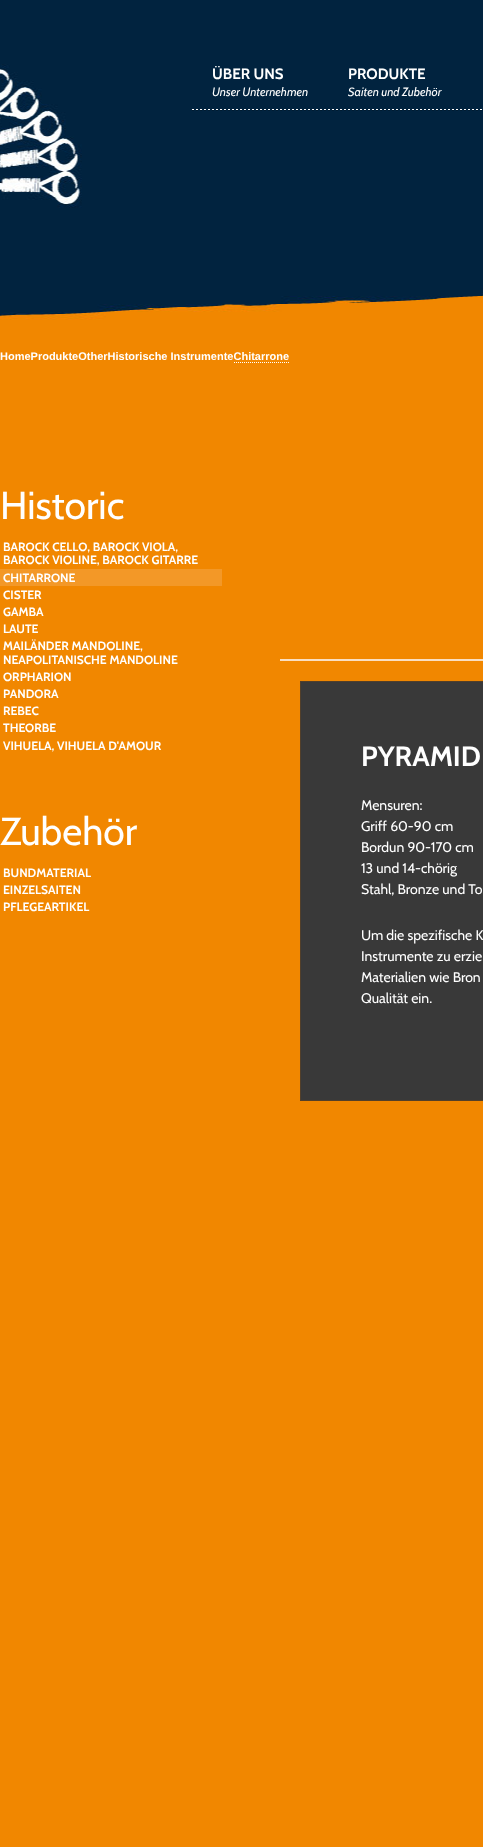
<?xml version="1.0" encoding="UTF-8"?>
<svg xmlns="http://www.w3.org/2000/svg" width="483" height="1847">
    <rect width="100%" height="100%" fill="#F18700"/>
    <image x="0" y="0" width="483" height="320" href="img_01.png"/>
    <image x="192" y="109" width="290" height="2" href="img_02.png"/>
    <text x="212" y="79" font-family="Cabin" font-size="15" font-weight="700" fill="#FFFFFF">ÜBER UNS</text>
    <text x="212" y="96" font-family="Cabin" font-size="12" font-style="italic" fill="#FFFFFF">Unser Unternehmen</text>
    <text x="348" y="79" font-family="Cabin" font-size="15" font-weight="700" fill="#FFFFFF">PRODUKTE</text>
    <text x="348" y="96" font-family="Cabin" font-size="12" font-style="italic" fill="#FFFFFF">Saiten und Zubehör</text>
    <image x="387" y="297" width="94" height="7" href="img_03.png"/>
    <text x="0" y="360" font-family="Liberation Sans" font-size="11" font-weight="700" fill="#FFFFFF">HomeProdukteOtherHistorische InstrumenteChitarrone</text>
    <path d="M 234 362.5 H 289" fill="none" stroke="#FFFFFF" stroke-dasharray="1 1"/>
    <text x="0" y="519" font-family="Cabin" font-size="39" fill="#FFFFFF">Historic</text>
    <text font-family="Cabin" font-size="12" font-weight="700" fill="#FFFFFF">
        <tspan x="3" y="551">BAROCK CELLO, BAROCK VIOLA,</tspan>
        <tspan x="3" y="564">BAROCK VIOLINE, BAROCK GITARRE</tspan>
    </text>
    <rect x="0" y="569" width="222" height="17" fill="#F39827"/>
    <text font-family="Cabin" font-size="12" font-weight="700" fill="#FFFFFF">
        <tspan x="3" y="582">CHITARRONE</tspan>
        <tspan x="3" y="599">CISTER</tspan>
        <tspan x="3" y="616">GAMBA</tspan>
        <tspan x="3" y="633">LAUTE</tspan>
        <tspan x="3" y="650">MAILÄNDER MANDOLINE,</tspan>
        <tspan x="3" y="664">NEAPOLITANISCHE MANDOLINE</tspan>
        <tspan x="3" y="681">ORPHARION</tspan>
        <tspan x="3" y="698">PANDORA</tspan>
        <tspan x="3" y="715">REBEC</tspan>
        <tspan x="3" y="732">THEORBE</tspan>
        <tspan x="3" y="750">VIHUELA, VIHUELA D'AMOUR</tspan>
    </text>
    <text x="0" y="845" font-family="Cabin" font-size="39" fill="#FFFFFF">Zubehör</text>
    <text font-family="Cabin" font-size="12" font-weight="700" fill="#FFFFFF">
        <tspan x="3" y="877">BUNDMATERIAL</tspan>
        <tspan x="3" y="894">EINZELSAITEN</tspan>
        <tspan x="3" y="911">PFLEGEARTIKEL</tspan>
    </text>
    <rect x="280" y="659" width="203" height="2" fill="#F9DEC3"/>
    <rect x="300.5" y="681.5" width="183" height="419" fill="#393939" stroke="#523F2A"/>
    <text x="361" y="766" font-family="Cabin" font-size="28" font-weight="700" fill="#FFFFFF">PYRAMID</text>
    <text font-family="Cabin" font-size="14" fill="#FFFFFF">
        <tspan x="361" y="810">Mensuren:</tspan>
        <tspan x="361" y="831">Griff 60-90 cm</tspan>
        <tspan x="361" y="852">Bordun 90-170 cm</tspan>
        <tspan x="361" y="873">13 und 14-chörig</tspan>
        <tspan x="361" y="894">Stahl, Bronze und To</tspan>
    </text>
    <text font-family="Cabin" font-size="14" fill="#FFFFFF">
        <tspan x="361" y="940">Um die spezifische K</tspan>
        <tspan x="361" y="961">Instrumente zu erzie</tspan>
        <tspan x="361" y="982">Materialien wie Bron</tspan>
        <tspan x="361" y="1003">Qualität ein.</tspan>
    </text>
</svg>
